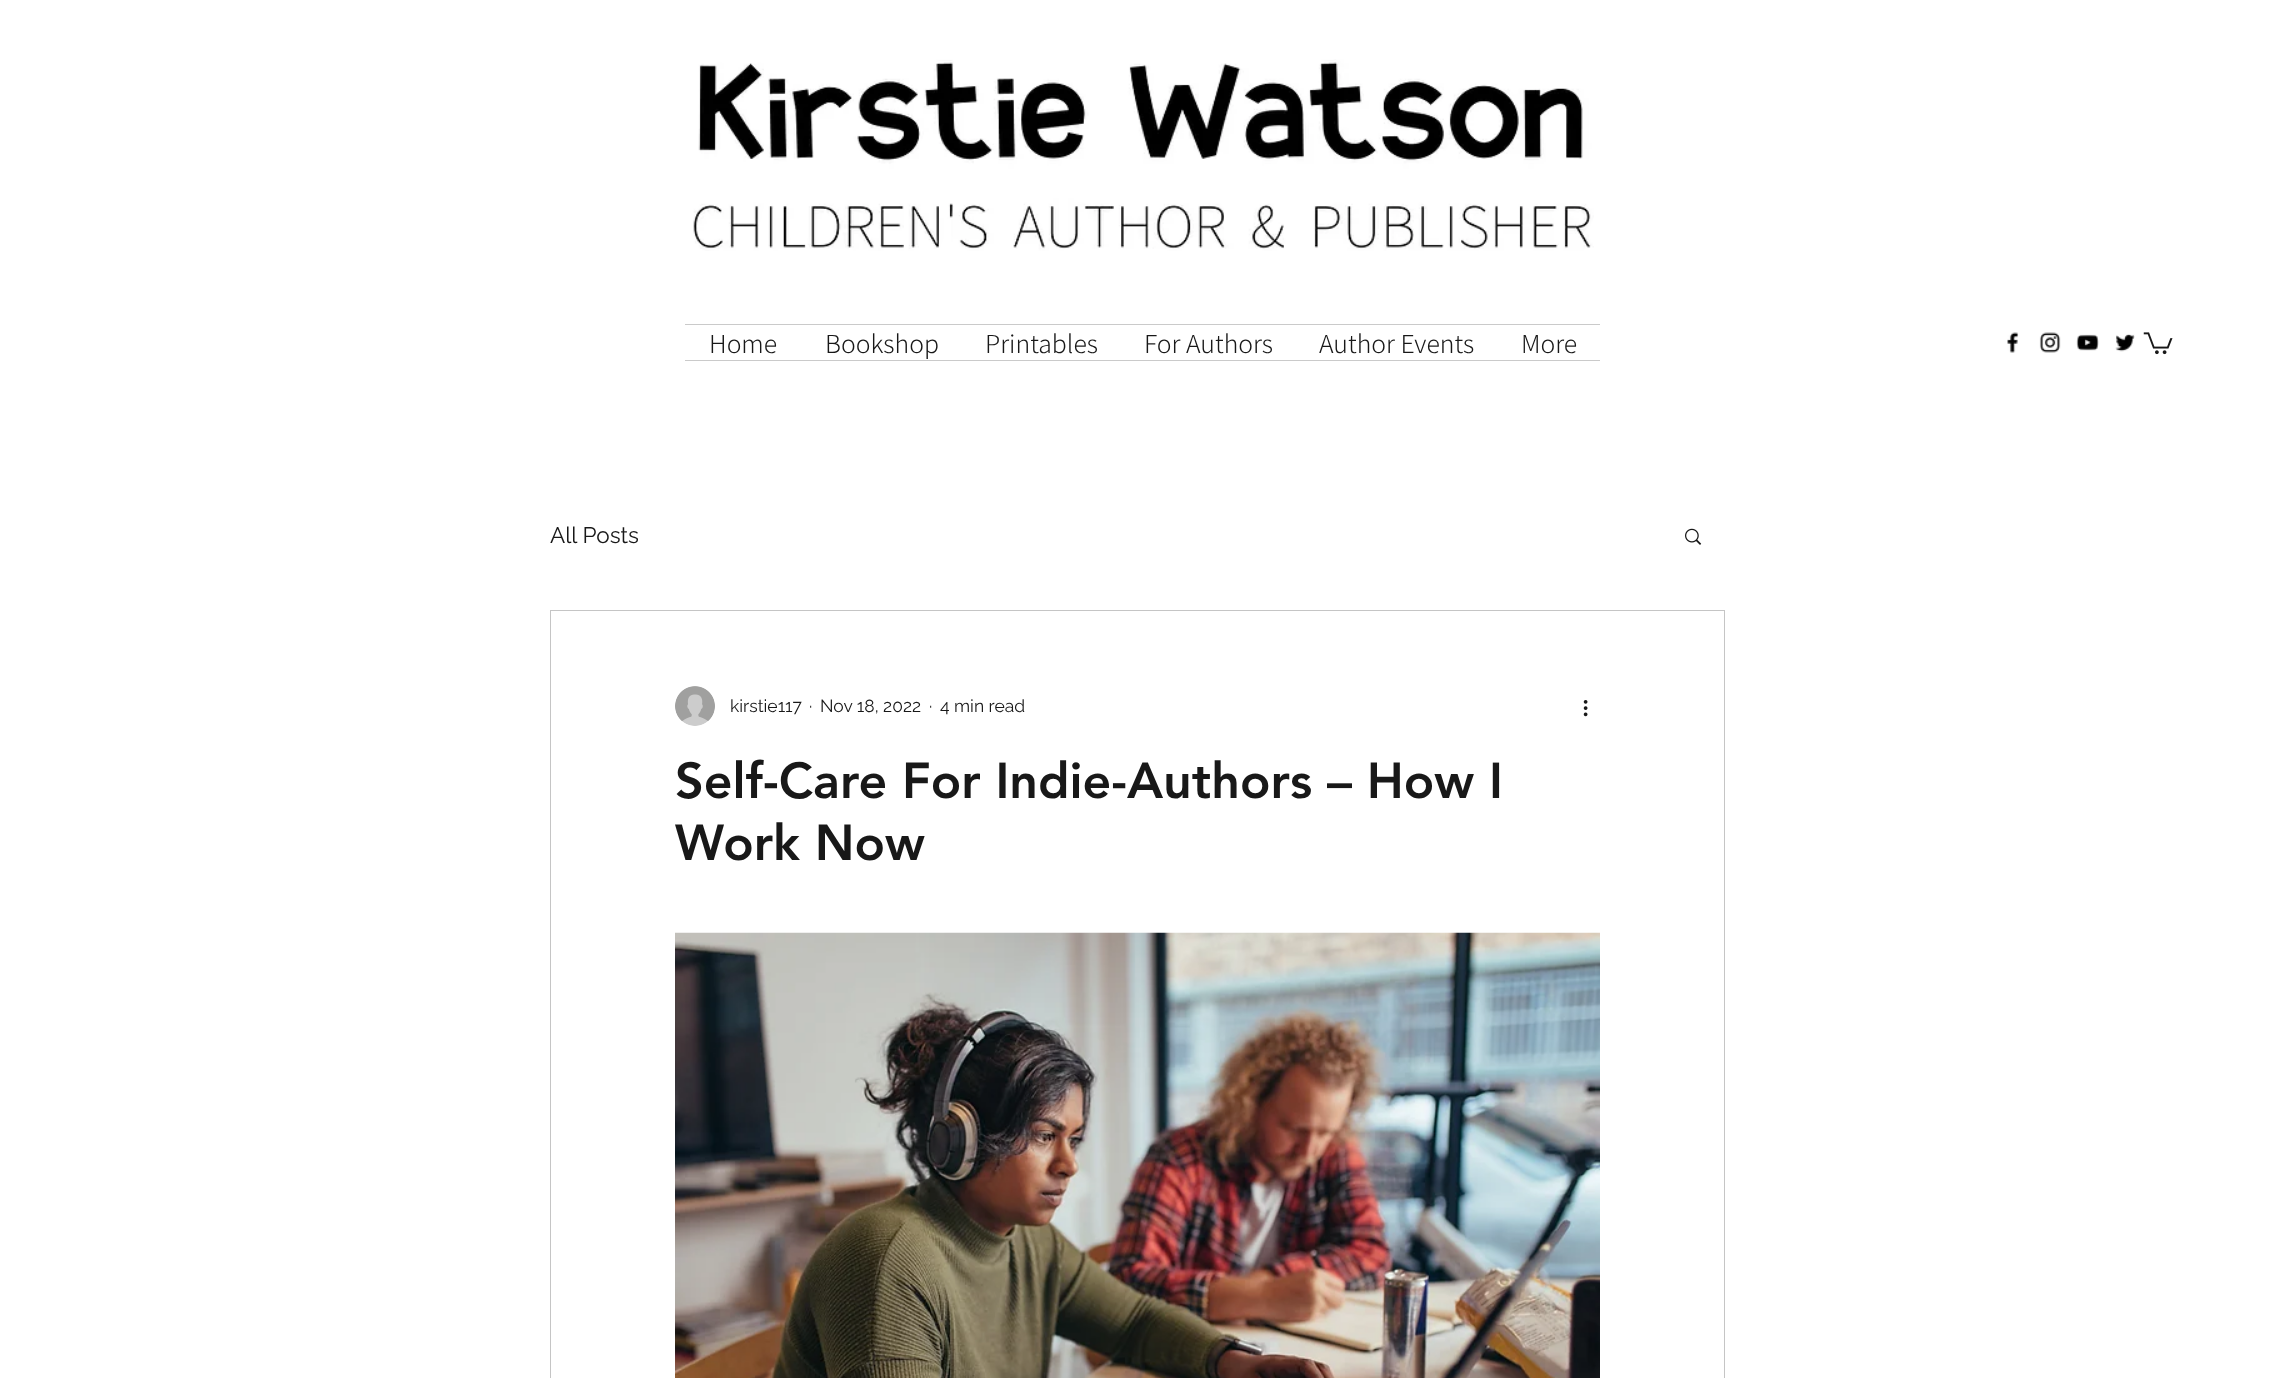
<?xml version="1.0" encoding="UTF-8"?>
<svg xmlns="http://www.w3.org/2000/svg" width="2274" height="1378">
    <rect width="100%" height="100%" fill="#FFFFFF"/>
    <image x="693" y="59" width="901" height="192" href="img_01.png"/>
    <rect x="685" y="324" width="915" height="1" fill="#CACACA"/>
    <rect x="685" y="360" width="915" height="1" fill="#CACACA"/>
    <text x="709" y="353" font-family="Assistant" font-size="27.5" font-weight="300" fill="#181818">Home</text>
    <text x="825" y="353" font-family="Assistant" font-size="27.5" font-weight="300" fill="#181818">Bookshop</text>
    <text x="985" y="353" font-family="Assistant" font-size="27.5" font-weight="300" fill="#181818">Printables</text>
    <text x="1144" y="353" font-family="Assistant" font-size="27.5" font-weight="300" fill="#181818">For Authors</text>
    <text x="1319" y="353" font-family="Assistant" font-size="27.5" font-weight="300" fill="#181818">Author Events</text>
    <text x="1521" y="353" font-family="Assistant" font-size="27.5" font-weight="300" fill="#181818">More</text>
    <image x="2007" y="332" width="12" height="21" href="img_02.png"/>
    <image x="2039" y="332" width="22" height="21" href="img_03.png"/>
    <image x="2076" y="334" width="23" height="17" href="img_04.png"/>
    <image x="2115" y="334" width="20" height="18" href="img_05.png"/>
    <image x="2143" y="332" width="30" height="23" href="img_06.png"/>
    <text x="550" y="543" font-family="Raleway" font-size="22.5" fill="#181818">All Posts</text>
    <image x="1685" y="528" width="17" height="17" href="img_07.png"/>
    <rect x="550.5" y="610.5" width="1174" height="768" fill="none" stroke="#C5C5C5"/>
    <image x="675" y="686" width="40" height="40" href="img_08.png"/>
    <text x="730" y="712" font-family="Raleway" font-size="17.5" fill="#181818">kirstie117</text>
    <text x="809" y="712" font-family="Raleway" font-size="17.5" fill="#181818">·</text>
    <text x="820" y="712" font-family="Raleway" font-size="17.5" fill="#181818">Nov 18, 2022</text>
    <text x="929" y="712" font-family="Raleway" font-size="17.5" fill="#181818">·</text>
    <text x="940" y="712" font-family="Raleway" font-size="17.5" fill="#181818">4 min read</text>
    <image x="1583" y="700" width="5" height="17" href="img_09.png"/>
    <text font-family="'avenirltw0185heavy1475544'" font-size="50" font-weight="900" fill="#181818">
        <tspan x="675" y="798">Self-Care For Indie-Authors – How I</tspan>
        <tspan x="675" y="860">Work Now</tspan>
    </text>
    <image x="675" y="932" width="925" height="446" href="img_10.png"/>
</svg>
